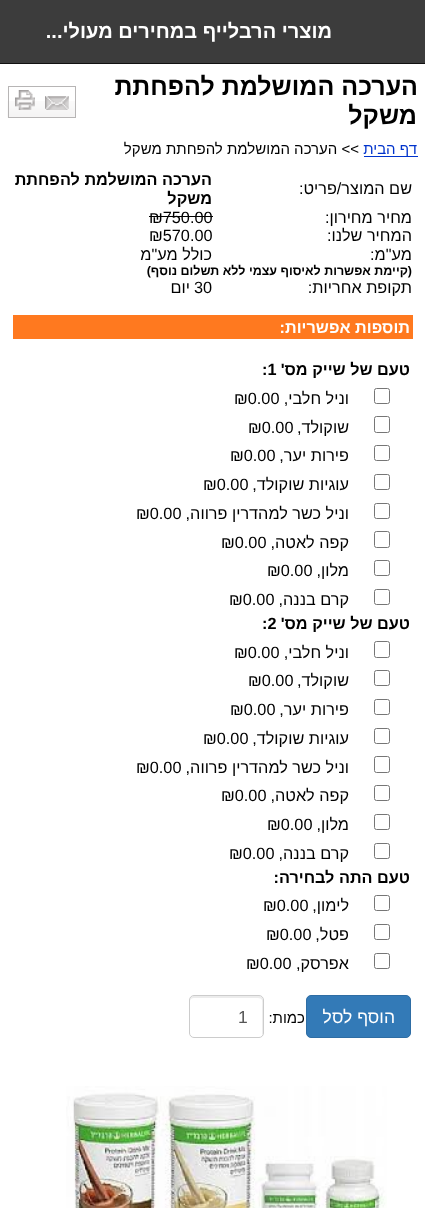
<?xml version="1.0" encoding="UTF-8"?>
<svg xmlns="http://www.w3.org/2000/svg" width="425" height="1208">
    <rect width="100%" height="100%" fill="#FFFFFF"/>
    <rect x="0" y="0" width="425" height="63" fill="#3C3C3C"/>
    <rect x="0" y="63" width="425" height="1" fill="#111111"/>
    <text x="332" y="38" font-family="Liberation Sans" font-size="20" font-weight="700" direction="rtl" fill="#FFFFFF">מוצרי הרבלייף במחירים מעולי...</text>
    <text x="418" y="95" font-family="Liberation Sans" font-size="25" font-weight="700" direction="rtl" fill="#000000">הערכה המושלמת להפחתת</text>
    <text x="417" y="124" font-family="Liberation Sans" font-size="25" font-weight="700" direction="rtl" fill="#000000">משקל</text>
    <image x="7" y="101" width="68" height="17" href="img_01.png"/>
    <rect x="8.5" y="86.5" width="67" height="31" fill="none" stroke="#B7B5B5"/>
    <image x="45" y="96" width="24" height="14" href="img_02.png"/>
    <image x="15" y="90" width="20" height="20" href="img_03.png"/>
    <rect x="364" y="156" width="54" height="1" fill="#0033CC"/>
    <text x="417" y="154" font-family="Liberation Sans" font-size="15" direction="rtl" fill="#0033CC">דף הבית</text>
    <text x="359" y="154" font-family="Liberation Sans" font-size="15" direction="rtl" fill="#000000">&gt;&gt; הערכה המושלמת להפחתת משקל</text>
    <text x="412" y="194" font-family="Liberation Sans" font-size="16.25" direction="rtl" fill="#000000">שם המוצר/פריט:</text>
    <text font-family="Liberation Sans" font-size="16.25" font-weight="700" direction="rtl" fill="#000000">
        <tspan x="212" y="185">הערכה המושלמת להפחתת</tspan>
        <tspan x="212" y="204">משקל</tspan>
    </text>
    <text x="412" y="223" font-family="Liberation Sans" font-size="16.25" direction="rtl" fill="#000000">מחיר מחירון:</text>
    <text x="149" y="223" font-family="Liberation Sans" font-size="16.25" fill="#000000">₪750.00</text>
    <rect x="149" y="216" width="64" height="1" fill="#000000"/>
    <text x="412" y="241" font-family="Liberation Sans" font-size="16.25" direction="rtl" fill="#000000">המחיר שלנו:</text>
    <text x="149" y="241" font-family="Liberation Sans" font-size="16.25" fill="#000000">₪570.00</text>
    <text x="412" y="260" font-family="Liberation Sans" font-size="16.25" direction="rtl" fill="#000000">מע"מ:</text>
    <text x="212" y="260" font-family="Liberation Sans" font-size="16.25" direction="rtl" fill="#000000">כולל מע"מ</text>
    <text x="412" y="275" font-family="Liberation Sans" font-size="12.5" font-weight="700" direction="rtl" fill="#000000">(קיימת אפשרות לאיסוף עצמי ללא תשלום נוסף)</text>
    <text x="412" y="293" font-family="Liberation Sans" font-size="16.25" direction="rtl" fill="#000000">תקופת אחריות:</text>
    <text x="194" y="293" font-family="Liberation Sans" font-size="16.25" fill="#000000">30</text>
    <text x="190" y="293" font-family="Liberation Sans" font-size="16.25" direction="rtl" fill="#000000">יום</text>
    <rect x="13" y="315" width="400" height="24" fill="#FF791F"/>
    <text x="410" y="333" font-family="Liberation Sans" font-size="16.25" font-weight="700" direction="rtl" fill="#FFFFFF">תוספות אפשריות:</text>
    <text x="410" y="375" font-family="Liberation Sans" font-size="16.25" font-weight="700" direction="rtl" fill="#000000">טעם של שייק מס'</text>
    <text x="262" y="375" font-family="Liberation Sans" font-size="16.25" font-weight="700" fill="#000000">:1</text>
    <rect x="374.5" y="388.5" width="15" height="15" rx="2" fill="none" stroke="#767676"/>
    <text x="349" y="404" font-family="Liberation Sans" font-size="16.25" direction="rtl" fill="#000000">וניל חלבי,</text>
    <text x="234" y="404" font-family="Liberation Sans" font-size="16.25" fill="#000000">₪0.00</text>
    <rect x="374.5" y="416.5" width="15" height="16" rx="2" fill="none" stroke="#767676"/>
    <text x="349" y="433" font-family="Liberation Sans" font-size="16.25" direction="rtl" fill="#000000">שוקולד,</text>
    <text x="248" y="433" font-family="Liberation Sans" font-size="16.25" fill="#000000">₪0.00</text>
    <rect x="374.5" y="445.5" width="15" height="15" rx="2" fill="none" stroke="#767676"/>
    <text x="349" y="461" font-family="Liberation Sans" font-size="16.25" direction="rtl" fill="#000000">פירות יער,</text>
    <text x="230" y="461" font-family="Liberation Sans" font-size="16.25" fill="#000000">₪0.00</text>
    <rect x="374.5" y="474.5" width="15" height="15" rx="2" fill="none" stroke="#767676"/>
    <text x="349" y="490" font-family="Liberation Sans" font-size="16.25" direction="rtl" fill="#000000">עוגיות שוקולד,</text>
    <text x="203" y="490" font-family="Liberation Sans" font-size="16.25" fill="#000000">₪0.00</text>
    <rect x="374.5" y="503.5" width="15" height="15" rx="2" fill="none" stroke="#767676"/>
    <text x="349" y="519" font-family="Liberation Sans" font-size="16.25" direction="rtl" fill="#000000">וניל כשר למהדרין פרווה,</text>
    <text x="136" y="519" font-family="Liberation Sans" font-size="16.25" fill="#000000">₪0.00</text>
    <rect x="374.5" y="531.5" width="15" height="16" rx="2" fill="none" stroke="#767676"/>
    <text x="349" y="548" font-family="Liberation Sans" font-size="16.25" direction="rtl" fill="#000000">קפה לאטה,</text>
    <text x="221" y="548" font-family="Liberation Sans" font-size="16.25" fill="#000000">₪0.00</text>
    <rect x="374.5" y="560.5" width="15" height="15" rx="2" fill="none" stroke="#767676"/>
    <text x="349" y="576" font-family="Liberation Sans" font-size="16.25" direction="rtl" fill="#000000">מלון,</text>
    <text x="267" y="576" font-family="Liberation Sans" font-size="16.25" fill="#000000">₪0.00</text>
    <rect x="374.5" y="589.5" width="15" height="15" rx="2" fill="none" stroke="#767676"/>
    <text x="349" y="605" font-family="Liberation Sans" font-size="16.25" direction="rtl" fill="#000000">קרם בננה,</text>
    <text x="229" y="605" font-family="Liberation Sans" font-size="16.25" fill="#000000">₪0.00</text>
    <text x="410" y="629" font-family="Liberation Sans" font-size="16.25" font-weight="700" direction="rtl" fill="#000000">טעם של שייק מס'</text>
    <text x="262" y="629" font-family="Liberation Sans" font-size="16.25" font-weight="700" fill="#000000">:2</text>
    <rect x="374.5" y="641.5" width="15" height="16" rx="2" fill="none" stroke="#767676"/>
    <text x="349" y="658" font-family="Liberation Sans" font-size="16.25" direction="rtl" fill="#000000">וניל חלבי,</text>
    <text x="234" y="658" font-family="Liberation Sans" font-size="16.25" fill="#000000">₪0.00</text>
    <rect x="374.5" y="670.5" width="15" height="15" rx="2" fill="none" stroke="#767676"/>
    <text x="349" y="686" font-family="Liberation Sans" font-size="16.25" direction="rtl" fill="#000000">שוקולד,</text>
    <text x="248" y="686" font-family="Liberation Sans" font-size="16.25" fill="#000000">₪0.00</text>
    <rect x="374.5" y="699.5" width="15" height="15" rx="2" fill="none" stroke="#767676"/>
    <text x="349" y="715" font-family="Liberation Sans" font-size="16.25" direction="rtl" fill="#000000">פירות יער,</text>
    <text x="230" y="715" font-family="Liberation Sans" font-size="16.25" fill="#000000">₪0.00</text>
    <rect x="374.5" y="728.5" width="15" height="15" rx="2" fill="none" stroke="#767676"/>
    <text x="349" y="744" font-family="Liberation Sans" font-size="16.25" direction="rtl" fill="#000000">עוגיות שוקולד,</text>
    <text x="203" y="744" font-family="Liberation Sans" font-size="16.25" fill="#000000">₪0.00</text>
    <rect x="374.5" y="756.5" width="15" height="16" rx="2" fill="none" stroke="#767676"/>
    <text x="349" y="773" font-family="Liberation Sans" font-size="16.25" direction="rtl" fill="#000000">וניל כשר למהדרין פרווה,</text>
    <text x="136" y="773" font-family="Liberation Sans" font-size="16.25" fill="#000000">₪0.00</text>
    <rect x="374.5" y="785.5" width="15" height="15" rx="2" fill="none" stroke="#767676"/>
    <text x="349" y="801" font-family="Liberation Sans" font-size="16.25" direction="rtl" fill="#000000">קפה לאטה,</text>
    <text x="221" y="801" font-family="Liberation Sans" font-size="16.25" fill="#000000">₪0.00</text>
    <rect x="374.5" y="814.5" width="15" height="15" rx="2" fill="none" stroke="#767676"/>
    <text x="349" y="830" font-family="Liberation Sans" font-size="16.25" direction="rtl" fill="#000000">מלון,</text>
    <text x="267" y="830" font-family="Liberation Sans" font-size="16.25" fill="#000000">₪0.00</text>
    <rect x="374.5" y="843.5" width="15" height="15" rx="2" fill="none" stroke="#767676"/>
    <text x="349" y="859" font-family="Liberation Sans" font-size="16.25" direction="rtl" fill="#000000">קרם בננה,</text>
    <text x="229" y="859" font-family="Liberation Sans" font-size="16.25" fill="#000000">₪0.00</text>
    <text x="410" y="883" font-family="Liberation Sans" font-size="16.25" font-weight="700" direction="rtl" fill="#000000">טעם התה לבחירה:</text>
    <rect x="374.5" y="895.5" width="15" height="15" rx="2" fill="none" stroke="#767676"/>
    <text x="349" y="911" font-family="Liberation Sans" font-size="16.25" direction="rtl" fill="#000000">לימון,</text>
    <text x="263" y="911" font-family="Liberation Sans" font-size="16.25" fill="#000000">₪0.00</text>
    <rect x="374.5" y="924.5" width="15" height="15" rx="2" fill="none" stroke="#767676"/>
    <text x="349" y="940" font-family="Liberation Sans" font-size="16.25" direction="rtl" fill="#000000">פטל,</text>
    <text x="266" y="940" font-family="Liberation Sans" font-size="16.25" fill="#000000">₪0.00</text>
    <rect x="374.5" y="953.5" width="15" height="15" rx="2" fill="none" stroke="#767676"/>
    <text x="349" y="969" font-family="Liberation Sans" font-size="16.25" direction="rtl" fill="#000000">אפרסק,</text>
    <text x="246" y="969" font-family="Liberation Sans" font-size="16.25" fill="#000000">₪0.00</text>
    <rect x="306.5" y="995.5" width="104" height="42" rx="4.5" fill="#337AB7" stroke="#2E6DA4"/>
    <text x="395" y="1023" font-family="Liberation Sans" font-size="17.5" direction="rtl" fill="#FFFFFF">הוסף לסל</text>
    <text x="305" y="1023" font-family="Liberation Sans" font-size="15" direction="rtl" fill="#000000">כמות:</text>
    <path d="M 194 998 H 248 C 265 998 262 996 262 1012 V 1035 C 263 1034 263 1033 263 1032 V 1000 C 263 998 261 996 259 996 H 194 C 192 996 190 998 190 1000 V 1001 C 190 999 192 998 194 998 Z" fill="#ECECEC"/>
    <rect x="189.5" y="995.5" width="74" height="42" rx="4.5" fill="none" stroke="#CCCCCC"/>
    <text x="238" y="1023" font-family="Liberation Sans" font-size="17.5" fill="#555555">1</text>
    <image x="66" y="1086" width="321" height="122" href="img_04.png"/>
</svg>
